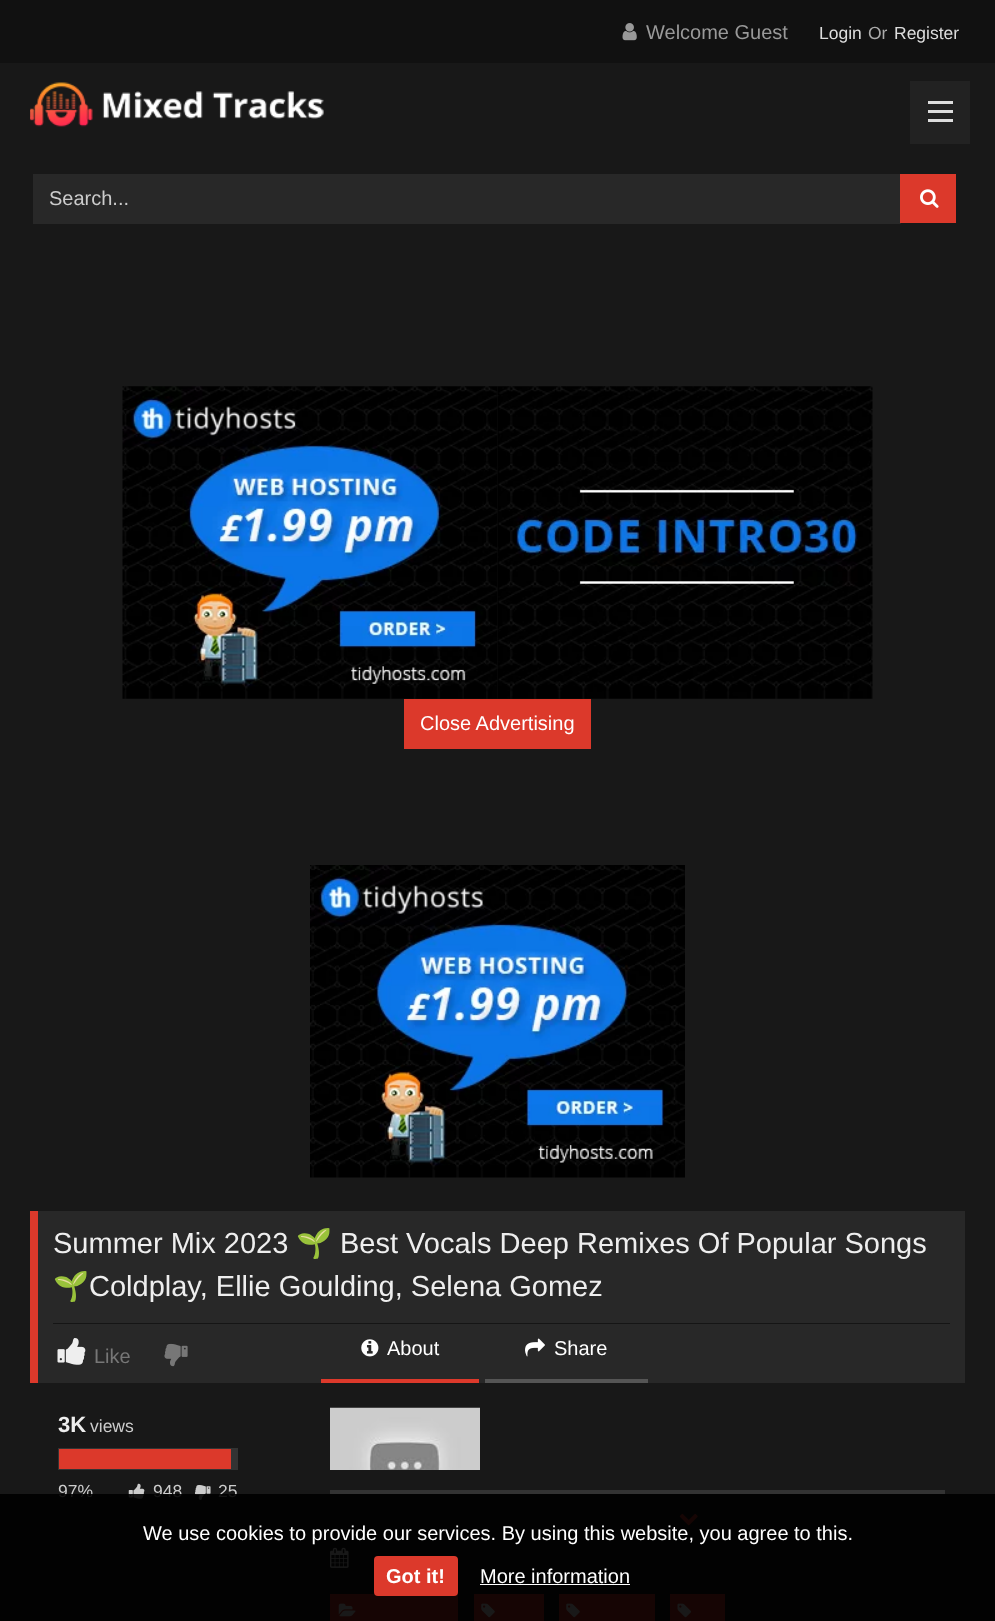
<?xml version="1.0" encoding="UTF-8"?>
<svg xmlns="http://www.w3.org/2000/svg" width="995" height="1621">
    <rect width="100%" height="100%" fill="#181818"/>
    <rect x="0" y="0" width="995" height="63" fill="#111111"/>
    <image x="622" y="23" width="15" height="18" href="img_01.png"/>
    <text x="646" y="39" font-family="Liberation Sans" font-size="20" fill="#999999">Welcome Guest</text>
    <text x="819" y="39" font-family="Liberation Sans" font-size="17.5" fill="#DDDDDD">Login</text>
    <text x="868" y="39" font-family="Liberation Sans" font-size="17.5" fill="#AAAAAA">Or</text>
    <text x="894" y="39" font-family="Liberation Sans" font-size="17.5" fill="#DDDDDD">Register</text>
    <rect x="910" y="81" width="60" height="63" fill="#222222"/>
    <rect x="928" y="101" width="25" height="3" fill="#DDDDDD"/>
    <rect x="928" y="110" width="25" height="3" fill="#DDDDDD"/>
    <rect x="928" y="119" width="25" height="3" fill="#DDDDDD"/>
    <image x="30" y="82" width="294" height="45" href="img_02.png"/>
    <rect x="33" y="174" width="868" height="50" fill="#282828"/>
    <text x="49" y="205" font-family="Liberation Sans" font-size="20" fill="#CCCCCC">Search...</text>
    <rect x="900" y="174" width="56" height="49" fill="#DC392B"/>
    <image x="920" y="189" width="19" height="19" href="img_03.png"/>
    <image x="122" y="386" width="376" height="313" href="img_04.png"/>
    <image x="497" y="386" width="376" height="313" href="img_05.png"/>
    <rect x="404" y="699" width="187" height="50" fill="#DC392B"/>
    <text x="420" y="730" font-family="Liberation Sans" font-size="20" fill="#FFFFFF">Close Advertising</text>
    <image x="310" y="865" width="375" height="313" href="img_06.png"/>
    <rect x="38" y="1211" width="927" height="172" fill="#282828"/>
    <rect x="30" y="1211" width="8" height="172" fill="#DC392B"/>
    <rect x="53" y="1323" width="897" height="1" fill="#151515"/>
    <text x="53" y="1253" font-family="Liberation Sans" font-size="29" fill="#EEEEEE">Summer Mix 2023</text>
    <text x="296" y="1253" font-family="Noto Color Emoji" font-size="29" fill="#EEEEEE">🌱</text>
    <text x="340" y="1253" font-family="Liberation Sans" font-size="29" fill="#EEEEEE">Best Vocals Deep Remixes Of Popular Songs</text>
    <text x="53" y="1296" font-family="Noto Color Emoji" font-size="29" fill="#EEEEEE">🌱</text>
    <text x="89" y="1296" font-family="Liberation Sans" font-size="29" fill="#EEEEEE">Coldplay, Ellie Goulding, Selena Gomez</text>
    <image x="57" y="1338" width="29" height="27" href="img_07.png"/>
    <text x="94" y="1363" font-family="Liberation Sans" font-size="20" fill="#777777">Like</text>
    <image x="164" y="1343" width="24" height="24" href="img_08.png"/>
    <rect x="321" y="1379" width="158" height="4" fill="#DC392B"/>
    <image x="361" y="1339" width="18" height="18" href="img_09.png"/>
    <text x="387" y="1355" font-family="Liberation Sans" font-size="20" fill="#FFFFFF">About</text>
    <rect x="485" y="1379" width="163" height="4" fill="#555555"/>
    <image x="525" y="1338" width="20" height="19" href="img_10.png"/>
    <text x="554" y="1355" font-family="Liberation Sans" font-size="20" fill="#FFFFFF">Share</text>
    <text x="58" y="1432" font-family="Liberation Sans" font-size="22" font-weight="700" fill="#EEEEEE">3K</text>
    <text x="90" y="1432" font-family="Liberation Sans" font-size="17.5" fill="#CCCCCC">views</text>
    <rect x="58" y="1448" width="180" height="22" fill="#333333"/>
    <rect x="59" y="1449" width="172" height="20" fill="#DC392B"/>
    <text x="58" y="1497" font-family="Liberation Sans" font-size="17.5" fill="#CCCCCC">97%</text>
    <image x="128" y="1483" width="17" height="16" href="img_11.png"/>
    <text x="153" y="1497" font-family="Liberation Sans" font-size="17.5" fill="#CCCCCC">948</text>
    <image x="194" y="1485" width="17" height="15" href="img_12.png"/>
    <text x="218" y="1497" font-family="Liberation Sans" font-size="17.5" fill="#CCCCCC">25</text>
    <image x="330" y="1407" width="150" height="63" href="img_13.png"/>
    <rect x="330" y="1490" width="615" height="4" fill="#333333"/>
    <image x="679" y="1513" width="19" height="13" href="img_14.png"/>
    <image x="330" y="1547" width="19" height="21" href="img_15.png"/>
    <rect x="330" y="1594" width="128" height="27" fill="#DC392B"/>
    <image x="338" y="1603" width="18" height="14" href="img_16.png"/>
    <rect x="474" y="1594" width="70" height="27" fill="#DC392B"/>
    <image x="481" y="1603" width="14" height="15" href="img_17.png"/>
    <rect x="559" y="1594" width="96" height="27" fill="#DC392B"/>
    <image x="566" y="1603" width="14" height="15" href="img_17.png"/>
    <rect x="670" y="1594" width="55" height="27" fill="#DC392B"/>
    <image x="677" y="1603" width="14" height="15" href="img_18.png"/>
    <rect x="0" y="1494" width="995" height="127" fill="#000000" fill-opacity="0.9"/>
    <text x="143" y="1540" font-family="Liberation Sans" font-size="20" fill="#FFFFFF">We use cookies to provide our services. By using this website, you agree to this.</text>
    <rect x="374" y="1556" width="84" height="40" rx="4" fill="#DC392B"/>
    <text x="386" y="1583" font-family="Liberation Sans" font-size="20" font-weight="700" fill="#FFFFFF">Got it!</text>
    <text x="480" y="1583" font-family="Liberation Sans" font-size="20" fill="#FFFFFF">More information</text>
    <rect x="480" y="1584" width="150" height="1" fill="#FFFFFF"/>
</svg>
